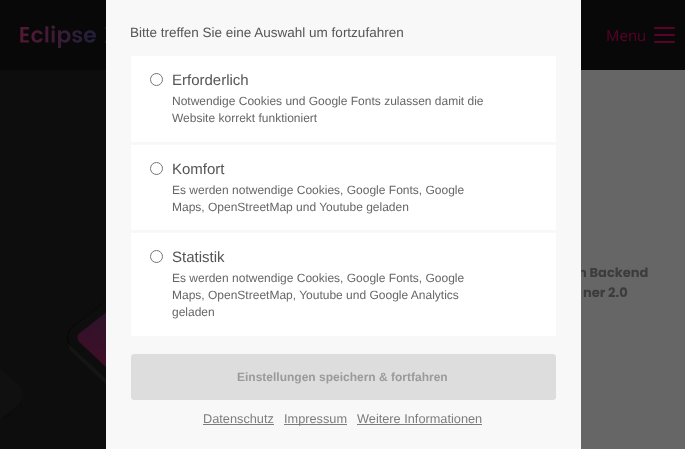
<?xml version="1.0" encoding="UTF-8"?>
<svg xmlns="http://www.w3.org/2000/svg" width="685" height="449">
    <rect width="100%" height="100%" fill="#666666"/>
    <rect x="0" y="0" width="685" height="70" fill="#080808"/>
    <text x="578" y="277" font-family="Poppins" font-size="13" font-weight="700" fill="#3C3C3C">n Backend</text>
    <rect x="106" y="0" width="475" height="449" fill="#F8F8F8"/>
    <text x="130" y="37" font-family="Liberation Sans" font-size="13.5" fill="#555555">Bitte treffen Sie eine Auswahl um fortzufahren</text>
    <rect x="131" y="56" width="425" height="86" fill="#FFFFFF"/>
    <circle cx="156.5" cy="79.5" r="6" fill="none" stroke="#767676"/>
    <text x="172" y="85" font-family="Liberation Sans" font-size="15" fill="#555555">Erforderlich</text>
    <text font-family="Liberation Sans" font-size="12" fill="#666666">
        <tspan x="172" y="105">Notwendige Cookies und Google Fonts zulassen damit die</tspan>
        <tspan x="172" y="122">Website korrekt funktioniert</tspan>
    </text>
    <rect x="131" y="145" width="425" height="85" fill="#FFFFFF"/>
    <circle cx="156.5" cy="168.5" r="6" fill="none" stroke="#767676"/>
    <text x="172" y="174" font-family="Liberation Sans" font-size="15" fill="#555555">Komfort</text>
    <text font-family="Liberation Sans" font-size="12" fill="#666666">
        <tspan x="172" y="194">Es werden notwendige Cookies, Google Fonts, Google</tspan>
        <tspan x="172" y="211">Maps, OpenStreetMap und Youtube geladen</tspan>
    </text>
    <rect x="131" y="233" width="425" height="103" fill="#FFFFFF"/>
    <circle cx="156.5" cy="256.5" r="6" fill="none" stroke="#767676"/>
    <text x="172" y="262" font-family="Liberation Sans" font-size="15" fill="#555555">Statistik</text>
    <text font-family="Liberation Sans" font-size="12" fill="#666666">
        <tspan x="172" y="282">Es werden notwendige Cookies, Google Fonts, Google</tspan>
        <tspan x="172" y="299">Maps, OpenStreetMap, Youtube und Google Analytics</tspan>
        <tspan x="172" y="316">geladen</tspan>
    </text>
    <rect x="131.5" y="354.5" width="424" height="45" rx="2.5" fill="#DDDDDD" stroke="#DDDDDD"/>
    <text x="237" y="381" font-family="Liberation Sans" font-size="12" font-weight="700" fill="#9A9A9A">Einstellungen speichern &amp; fortfahren</text>
    <text x="203" y="423" font-family="Liberation Sans" font-size="12.75" fill="#7C7C7C">Datenschutz</text>
    <rect x="203" y="424" width="71" height="1" fill="#7C7C7C"/>
    <rect x="284" y="424" width="63" height="1" fill="#7C7C7C"/>
    <text x="284" y="423" font-family="Liberation Sans" font-size="12.75" fill="#7C7C7C">Impressum</text>
    <text x="357" y="423" font-family="Liberation Sans" font-size="12.75" fill="#7C7C7C">Weitere Informationen</text>
    <rect x="357" y="424" width="125" height="1" fill="#7C7C7C"/>
    <image x="20" y="25" width="86" height="23" href="img_01.png"/>
    <text x="606" y="41" font-family="Open Sans" font-size="15" fill="#5D002A">Menu</text>
    <rect x="654" y="34" width="21" height="2" rx="1" fill="#5D002A"/>
    <rect x="654" y="27" width="21" height="2" rx="1" fill="#5D002A"/>
    <rect x="654" y="41" width="21" height="2" rx="1" fill="#5D002A"/>
    <image x="0" y="70" width="106" height="379" href="img_02.png"/>
    <image x="0" y="70" width="106" height="379" href="img_03.png"/>
    <text x="583" y="297" font-family="Poppins" font-size="13" font-weight="700" fill="#3C3C3C">ner 2.0</text>
    <image x="67" y="301" width="39" height="84" href="img_04.png"/>
</svg>
